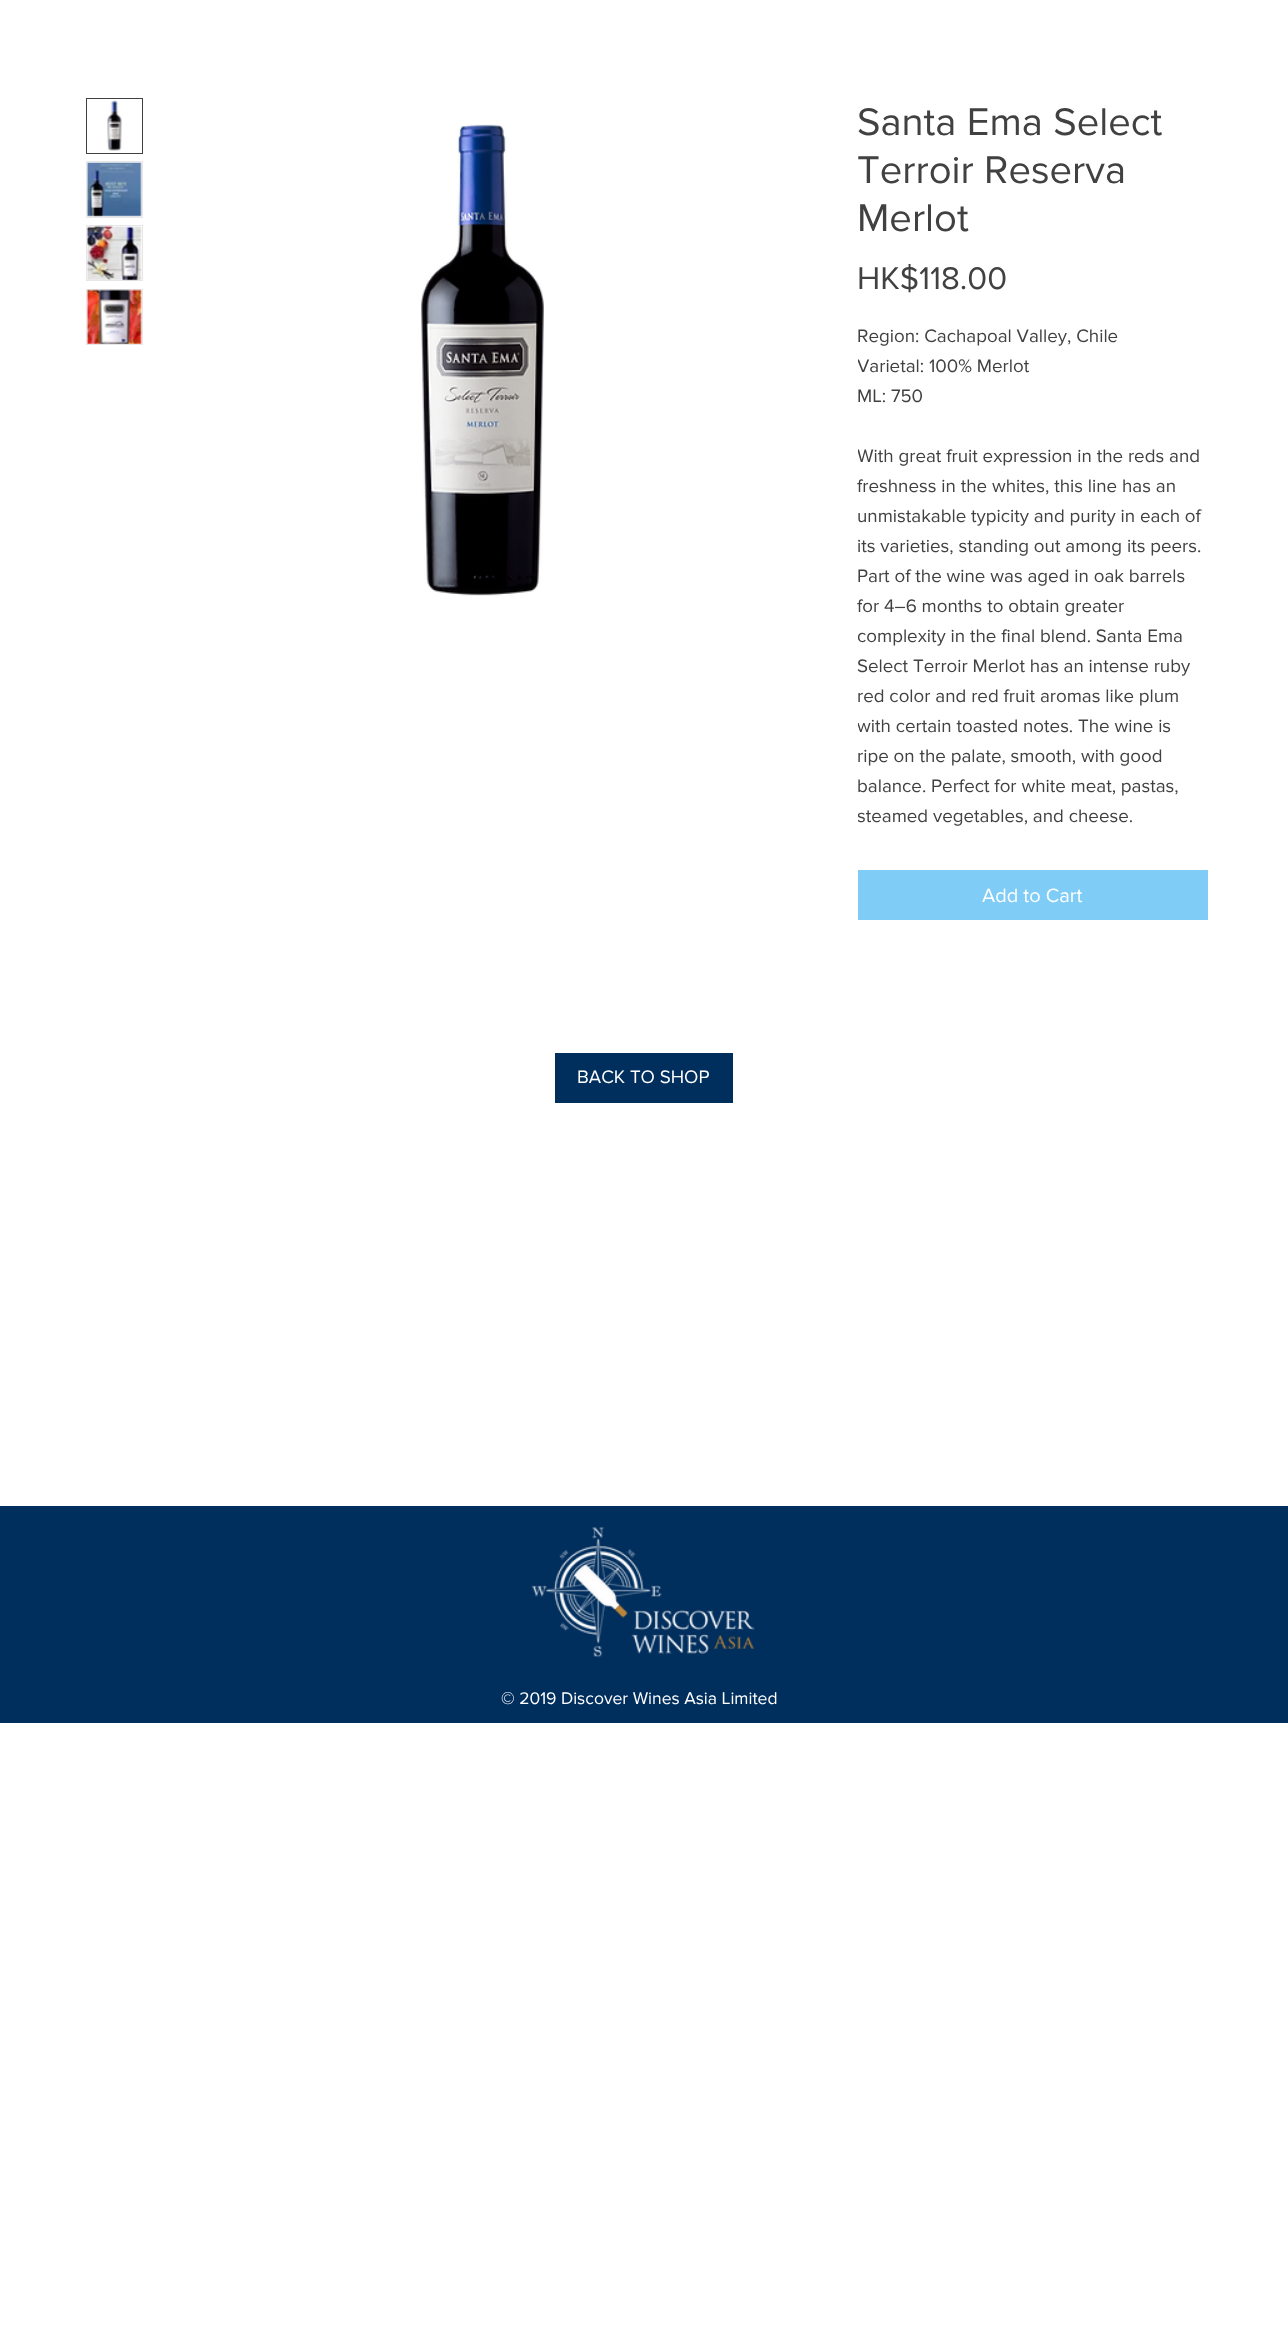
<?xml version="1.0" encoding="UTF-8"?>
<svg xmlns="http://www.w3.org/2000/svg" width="1288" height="2338">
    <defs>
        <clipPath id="clip1"><rect x="858" y="320" width="350" height="510"/></clipPath>
    </defs>
    <rect width="100%" height="100%" fill="#FFFFFF"/>
    <rect x="86.5" y="98.5" width="56" height="55" fill="none" stroke="#414141"/>
    <image x="107" y="100" width="15" height="51" href="img_01.png"/>
    <rect x="86.5" y="161.5" width="56" height="56" fill="none" stroke="#E8E6E6"/>
    <image x="87" y="162" width="55" height="55" href="img_02.png"/>
    <rect x="86.5" y="225.5" width="56" height="55" fill="none" stroke="#E8E6E6"/>
    <image x="87" y="225" width="55" height="56" href="img_03.png"/>
    <rect x="86.5" y="289.5" width="56" height="55" fill="none" stroke="#E8E6E6"/>
    <image x="87" y="289" width="55" height="55" href="img_04.png"/>
    <image x="421" y="124" width="123" height="472" href="img_05.png"/>
    <text font-family="'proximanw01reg'" font-size="40" fill="#414141">
        <tspan x="857" y="135">Santa Ema Select</tspan>
        <tspan x="857" y="183">Terroir Reserva</tspan>
        <tspan x="857" y="231">Merlot</tspan>
    </text>
    <text x="857" y="289" font-family="'proximanw01reg'" font-size="32.5" fill="#414141">HK$118.00</text>
    <text x="857" y="342" font-family="'proximanw01reg'" font-size="18.75" fill="#414141">Region: Cachapoal Valley, Chile</text>
    <g clip-path="url(#clip1)">
        <text x="857" y="372" font-family="'proximanw01reg'" font-size="18.75" fill="#414141">Varietal: 100% Merlot</text>
    </g>
    <text x="857" y="402" font-family="'proximanw01reg'" font-size="18.75" fill="#414141">ML: 750</text>
    <g clip-path="url(#clip1)">
        <text x="857" y="462" font-family="'proximanw01reg'" font-size="18.75" fill="#414141">With great fruit expression in the reds and</text>
    </g>
    <text font-family="'proximanw01reg'" font-size="18.75" fill="#414141">
        <tspan x="857" y="492">freshness in the whites, this line has an</tspan>
        <tspan x="857" y="522">unmistakable typicity and purity in each of</tspan>
        <tspan x="857" y="552">its varieties, standing out among its peers.</tspan>
        <tspan x="857" y="582">Part of the wine was aged in oak barrels</tspan>
        <tspan x="857" y="612">for 4–6 months to obtain greater</tspan>
    </text>
    <g clip-path="url(#clip1)">
        <text x="857" y="642" font-family="'proximanw01reg'" font-size="18.75" fill="#414141">complexity in the final blend. Santa Ema</text>
    </g>
    <text font-family="'proximanw01reg'" font-size="18.75" fill="#414141">
        <tspan x="857" y="672">Select Terroir Merlot has an intense ruby</tspan>
        <tspan x="857" y="702">red color and red fruit aromas like plum</tspan>
    </text>
    <g clip-path="url(#clip1)">
        <text x="857" y="732" font-family="'proximanw01reg'" font-size="18.75" fill="#414141">with certain toasted notes. The wine is</text>
    </g>
    <text font-family="'proximanw01reg'" font-size="18.75" fill="#414141">
        <tspan x="857" y="762">ripe on the palate, smooth, with good</tspan>
        <tspan x="857" y="792">balance. Perfect for white meat, pastas,</tspan>
    </text>
    <g clip-path="url(#clip1)">
        <text x="857" y="822" font-family="'proximanw01reg'" font-size="18.75" fill="#414141">steamed vegetables, and cheese.</text>
    </g>
    <rect x="858" y="870" width="350" height="50" fill="#7FCCF7"/>
    <text x="982" y="902" font-family="'proximanw01reg'" font-size="20" fill="#FFFFFF">Add to Cart</text>
    <rect x="555" y="1053" width="178" height="50" fill="#002E5D"/>
    <text x="577" y="1083" font-family="'proximanw01reg'" font-size="18.75" fill="#FFFFFF">BACK TO SHOP</text>
    <rect x="0" y="1506" width="1288" height="217" fill="#002E5D"/>
    <image x="531" y="1527" width="224" height="131" href="img_06.png"/>
    <text x="501" y="1704" font-family="'proximanw01reg'" font-size="17.5" fill="#FFFFFF">© 2019 Discover Wines Asia Limited</text>
</svg>
